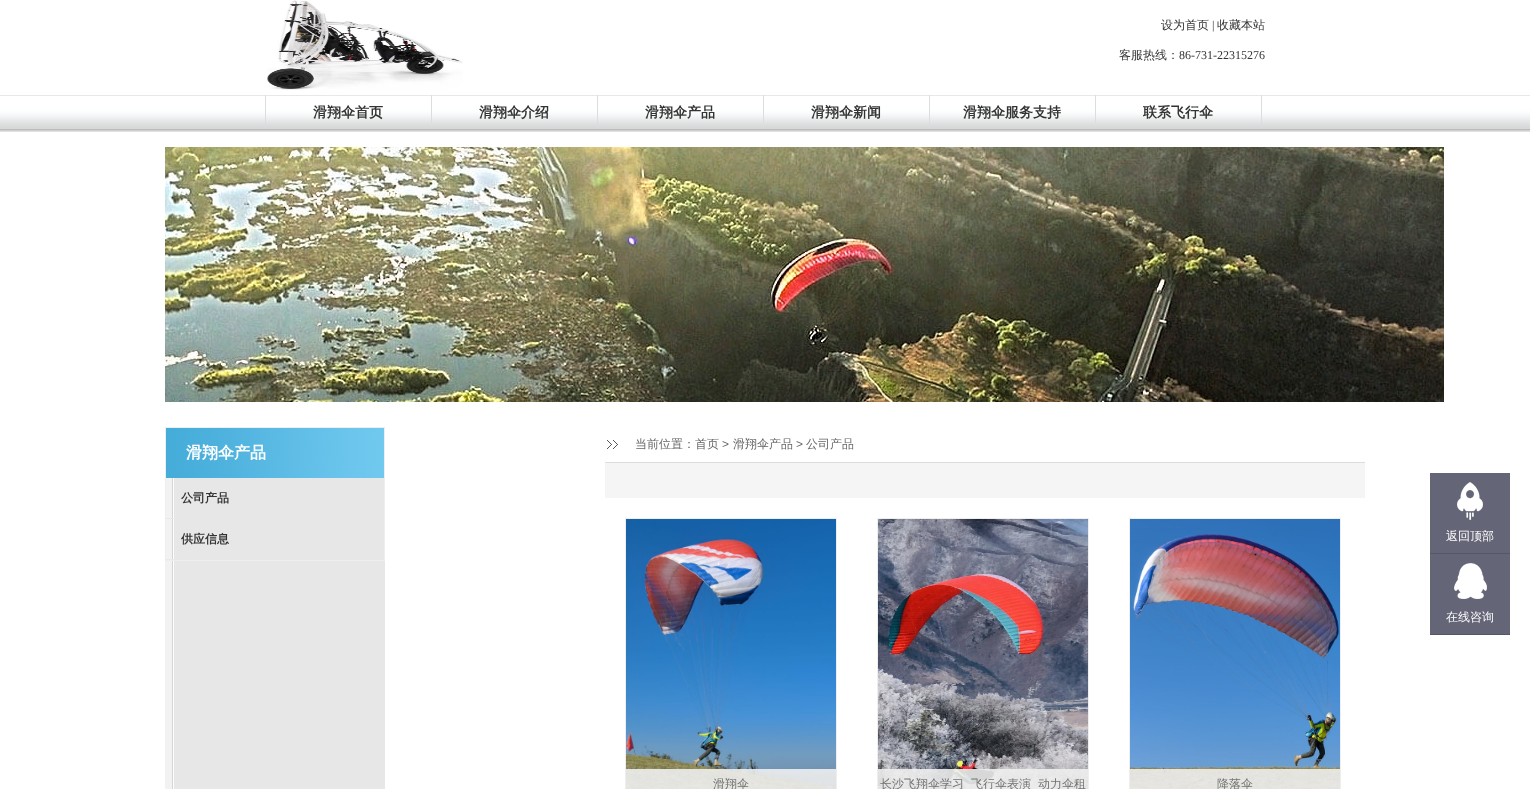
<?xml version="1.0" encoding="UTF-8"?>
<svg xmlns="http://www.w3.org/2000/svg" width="1530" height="789">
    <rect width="100%" height="100%" fill="#FFFFFF"/>
    <image x="267" y="0" width="196" height="90" href="img_01.png"/>
    <text x="1161" y="29" font-family="WenQuanYi Zen Hei" font-size="12" font-weight="500" fill="#333333">设为首页</text>
    <text x="1212" y="29" font-family="Liberation Serif" font-size="12" fill="#333333">|</text>
    <text x="1217" y="29" font-family="WenQuanYi Zen Hei" font-size="12" font-weight="500" fill="#333333">收藏本站</text>
    <text x="1119" y="59" font-family="WenQuanYi Zen Hei" font-size="12" font-weight="500" fill="#333333">客服热线：</text>
    <text x="1179" y="59" font-family="Liberation Serif" font-size="12" fill="#333333">86-731-22315276</text>
    <image x="0" y="95" width="1530" height="37" href="img_02.png"/>
    <rect x="265" y="95" width="1" height="32" fill="#DDDDDD"/>
    <rect x="431" y="95" width="1" height="32" fill="#DDDDDD"/>
    <text x="313" y="117" font-family="WenQuanYi Zen Hei" font-size="14" font-weight="700" fill="#333333">滑翔伞首页</text>
    <rect x="597" y="95" width="1" height="32" fill="#DDDDDD"/>
    <text x="479" y="117" font-family="WenQuanYi Zen Hei" font-size="14" font-weight="700" fill="#333333">滑翔伞介绍</text>
    <rect x="763" y="95" width="1" height="32" fill="#DDDDDD"/>
    <text x="645" y="117" font-family="WenQuanYi Zen Hei" font-size="14" font-weight="700" fill="#333333">滑翔伞产品</text>
    <rect x="929" y="95" width="1" height="32" fill="#DDDDDD"/>
    <text x="811" y="117" font-family="WenQuanYi Zen Hei" font-size="14" font-weight="700" fill="#333333">滑翔伞新闻</text>
    <rect x="1095" y="95" width="1" height="32" fill="#DDDDDD"/>
    <text x="963" y="117" font-family="WenQuanYi Zen Hei" font-size="14" font-weight="700" fill="#333333">滑翔伞服务支持</text>
    <rect x="1261" y="95" width="1" height="32" fill="#DDDDDD"/>
    <text x="1143" y="117" font-family="WenQuanYi Zen Hei" font-size="14" font-weight="700" fill="#333333">联系飞行伞</text>
    <image x="165" y="147" width="1279" height="255" href="img_03.png"/>
    <image x="165" y="478" width="220" height="311" href="img_04.png"/>
    <rect x="165.5" y="427.5" width="219" height="133" fill="none" stroke="#EEEEEE"/>
    <image x="166" y="428" width="218" height="50" href="img_05.png"/>
    <text x="186" y="458" font-family="WenQuanYi Zen Hei" font-size="16" font-weight="700" fill="#FFFFFF">滑翔伞产品</text>
    <rect x="166" y="518" width="9" height="1" fill="#E9E9E9"/>
    <text x="181" y="502" font-family="WenQuanYi Zen Hei" font-size="12" font-weight="700" fill="#333333">公司产品</text>
    <rect x="166" y="559" width="9" height="1" fill="#E9E9E9"/>
    <text x="181" y="543" font-family="WenQuanYi Zen Hei" font-size="12" font-weight="700" fill="#333333">供应信息</text>
    <image x="607" y="440" width="11" height="9" href="img_06.png"/>
    <rect x="605" y="462" width="760" height="1" fill="#DDDDDD"/>
    <text x="635" y="448" font-family="WenQuanYi Zen Hei" font-size="12" font-weight="500" fill="#666666">当前位置：首页</text>
    <text x="722" y="448" font-family="Liberation Sans" font-size="12" fill="#666666">&gt;</text>
    <text x="733" y="448" font-family="WenQuanYi Zen Hei" font-size="12" font-weight="500" fill="#666666">滑翔伞产品</text>
    <text x="796" y="448" font-family="Liberation Sans" font-size="12" fill="#666666">&gt;</text>
    <text x="806" y="448" font-family="WenQuanYi Zen Hei" font-size="12" font-weight="500" fill="#666666">公司产品</text>
    <rect x="605" y="463" width="760" height="35" fill="#F5F5F5"/>
    <rect x="625.5" y="518.5" width="211" height="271" fill="none" stroke="#EEEEEE"/>
    <image x="626" y="519" width="210" height="270" href="img_07.png"/>
    <rect x="626" y="769" width="210" height="20" fill="#EEEEEE" fill-opacity="0.9"/>
    <text x="713" y="788" font-family="WenQuanYi Zen Hei" font-size="12" font-weight="500" fill="#737372">滑翔伞</text>
    <rect x="877.5" y="518.5" width="211" height="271" fill="none" stroke="#EEEEEE"/>
    <image x="878" y="519" width="210" height="270" href="img_08.png"/>
    <rect x="878" y="769" width="210" height="20" fill="#EEEEEE" fill-opacity="0.9"/>
    <text x="880" y="788" font-family="WenQuanYi Zen Hei" font-size="12" font-weight="500" fill="#737372">长沙飞翔伞学习</text>
    <text x="971" y="788" font-family="WenQuanYi Zen Hei" font-size="12" font-weight="500" fill="#737372">飞行伞表演</text>
    <text x="1038" y="788" font-family="WenQuanYi Zen Hei" font-size="12" font-weight="500" fill="#737372">动力伞租</text>
    <rect x="1129.5" y="518.5" width="211" height="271" fill="none" stroke="#EEEEEE"/>
    <image x="1130" y="519" width="210" height="270" href="img_09.png"/>
    <rect x="1130" y="769" width="210" height="20" fill="#EEEEEE" fill-opacity="0.9"/>
    <text x="1217" y="788" font-family="WenQuanYi Zen Hei" font-size="12" font-weight="500" fill="#737372">降落伞</text>
    <rect x="1430" y="473" width="80" height="80" fill="#646577"/>
    <image x="1457" y="482" width="26" height="38" href="img_10.png"/>
    <rect x="1430" y="553" width="80" height="1" fill="#555666"/>
    <text x="1446" y="540" font-family="WenQuanYi Zen Hei" font-size="12" font-weight="500" fill="#FFFFFF">返回顶部</text>
    <rect x="1430" y="554" width="80" height="80" fill="#646577"/>
    <image x="1454" y="563" width="33" height="36" href="img_11.png"/>
    <rect x="1430" y="634" width="80" height="1" fill="#555666"/>
    <text x="1446" y="621" font-family="WenQuanYi Zen Hei" font-size="12" font-weight="500" fill="#FFFFFF">在线咨询</text>
</svg>
